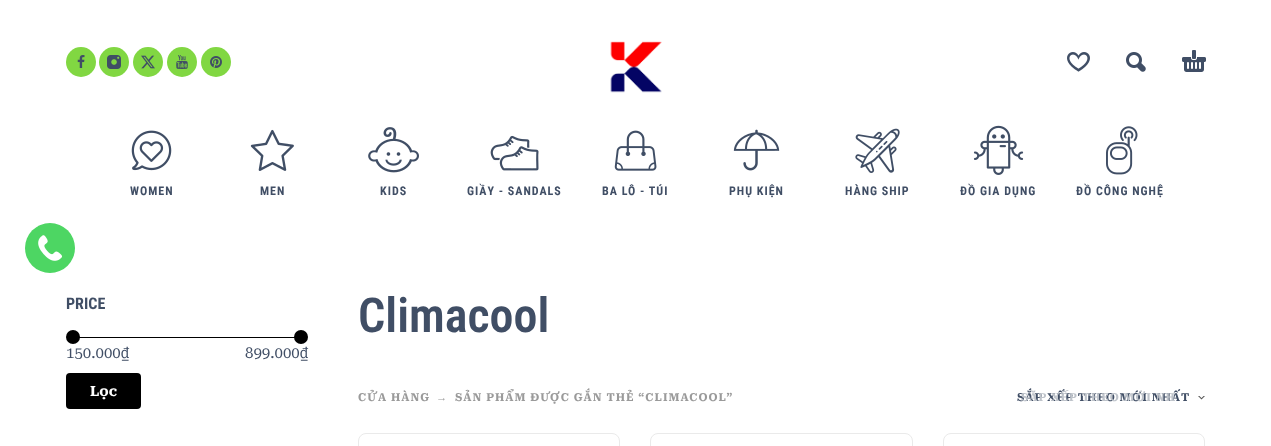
<?xml version="1.0" encoding="UTF-8"?>
<svg xmlns="http://www.w3.org/2000/svg" width="1271" height="446">
    <defs>
        <clipPath id="clip1"><rect x="1021" y="390" width="153" height="15"/></clipPath>
    </defs>
    <rect width="100%" height="100%" fill="#FFFFFF"/>
    <circle cx="50" cy="248" r="25" fill="#4DD663"/>
    <image x="38" y="235" width="24" height="26" href="img_01.png"/>
    <circle cx="81" cy="62" r="15" fill="#81D742"/>
    <image x="77" y="55" width="8" height="13" href="img_02.png"/>
    <circle cx="114" cy="62" r="15" fill="#81D742"/>
    <image x="107" y="55" width="14" height="14" href="img_03.png"/>
    <circle cx="148" cy="62" r="15" fill="#81D742"/>
    <image x="141" y="55" width="14" height="14" href="img_04.png"/>
    <circle cx="182" cy="62" r="15" fill="#81D742"/>
    <image x="176" y="55" width="12" height="14" href="img_05.png"/>
    <circle cx="216" cy="62" r="15" fill="#81D742"/>
    <image x="210" y="56" width="12" height="12" href="img_06.png"/>
    <image x="610" y="41" width="52" height="52" href="img_07.png"/>
    <image x="1067" y="52" width="23" height="20" href="img_08.png"/>
    <image x="1126" y="52" width="20" height="20" href="img_09.png"/>
    <image x="1182" y="50" width="24" height="22" href="img_10.png"/>
    <image x="131" y="130" width="41" height="41" href="img_11.png"/>
    <text x="130" y="195" font-family="Roboto Condensed" font-size="12" font-weight="700" letter-spacing="1" fill="#404E65">WOMEN</text>
    <image x="250" y="129" width="44" height="42" href="img_12.png"/>
    <text x="260" y="195" font-family="Roboto Condensed" font-size="12" font-weight="700" letter-spacing="1" fill="#404E65">MEN</text>
    <image x="368" y="127" width="51" height="46" href="img_13.png"/>
    <text x="380" y="195" font-family="Roboto Condensed" font-size="12" font-weight="700" letter-spacing="1" fill="#404E65">KIDS</text>
    <image x="490" y="135" width="49" height="36" href="img_14.png"/>
    <text x="467" y="195" font-family="Roboto Condensed" font-size="12" font-weight="700" letter-spacing="1" fill="#404E65">GIẦY - SANDALS</text>
    <image x="614" y="130" width="43" height="41" href="img_15.png"/>
    <text x="602" y="195" font-family="Roboto Condensed" font-size="12" font-weight="700" letter-spacing="1" fill="#404E65">BA LÔ - TÚI</text>
    <image x="733" y="129" width="47" height="42" href="img_16.png"/>
    <text x="729" y="195" font-family="Roboto Condensed" font-size="12" font-weight="700" letter-spacing="1" fill="#404E65">PHỤ KIỆN</text>
    <image x="855" y="128" width="45" height="45" href="img_17.png"/>
    <text x="845" y="195" font-family="Roboto Condensed" font-size="12" font-weight="700" letter-spacing="1" fill="#404E65">HÀNG SHIP</text>
    <image x="973" y="125" width="51" height="50" href="img_18.png"/>
    <text x="960" y="195" font-family="Roboto Condensed" font-size="12" font-weight="700" letter-spacing="1" fill="#404E65">ĐỒ GIA DỤNG</text>
    <image x="1106" y="126" width="32" height="49" href="img_19.png"/>
    <text x="1076" y="195" font-family="Roboto Condensed" font-size="12" font-weight="700" letter-spacing="1" fill="#404E65">ĐỒ CÔNG NGHỆ</text>
    <text x="66" y="309" font-family="Roboto Condensed" font-size="16" font-weight="700" fill="#404E65">PRICE</text>
    <rect x="73" y="337" width="228" height="1" fill="#000000"/>
    <circle cx="73" cy="337" r="7" fill="#000000"/>
    <circle cx="301" cy="337" r="7" fill="#000000"/>
    <text x="66" y="358" font-family="Roboto Serif" font-size="15" fill="#404E65">150.000₫</text>
    <text x="245" y="358" font-family="Roboto Serif" font-size="15" fill="#404E65">899.000₫</text>
    <rect x="66" y="373" width="75" height="36" rx="4" fill="#000000"/>
    <text x="90" y="396" font-family="Roboto Serif" font-size="14" font-weight="700" fill="#FFFFFF">Lọc</text>
    <text x="358" y="332" font-family="Roboto Condensed" font-size="48" font-weight="600" fill="#404E65">Climacool</text>
    <text x="358" y="401" font-family="Roboto Serif" font-size="11" font-weight="700" letter-spacing="1" fill="#9A9A9A">CỬA HÀNG</text>
    <text x="436" y="401" font-family="Liberation Sans" font-size="11" font-weight="700" letter-spacing="1" fill="#9A9A9A">→</text>
    <text x="455" y="401" font-family="Roboto Serif" font-size="11" font-weight="700" letter-spacing="1" fill="#9A9A9A">SẢN PHẨM ĐƯỢC GẮN THẺ “CLIMACOOL”</text>
    <image x="1198" y="396" width="7" height="4" href="img_20.png"/>
    <text x="1017" y="401" font-family="Roboto Serif" font-size="11" font-weight="700" letter-spacing="1" fill="#404E65">SẮP XẾP THEO MỚI NHẤT</text>
    <g clip-path="url(#clip1)">
        <text x="1021" y="401" font-family="Roboto Serif" font-size="11" font-weight="700" letter-spacing="1" fill="#BEC3CA">SẮP XẾP THEO MỚI NH</text>
    </g>
    <rect x="358.5" y="433.5" width="261" height="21" rx="7.5" fill="none" stroke="#EAEAEA"/>
    <rect x="650.5" y="433.5" width="262" height="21" rx="7.5" fill="none" stroke="#EAEAEA"/>
    <rect x="943.5" y="433.5" width="261" height="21" rx="7.5" fill="none" stroke="#EAEAEA"/>
</svg>
